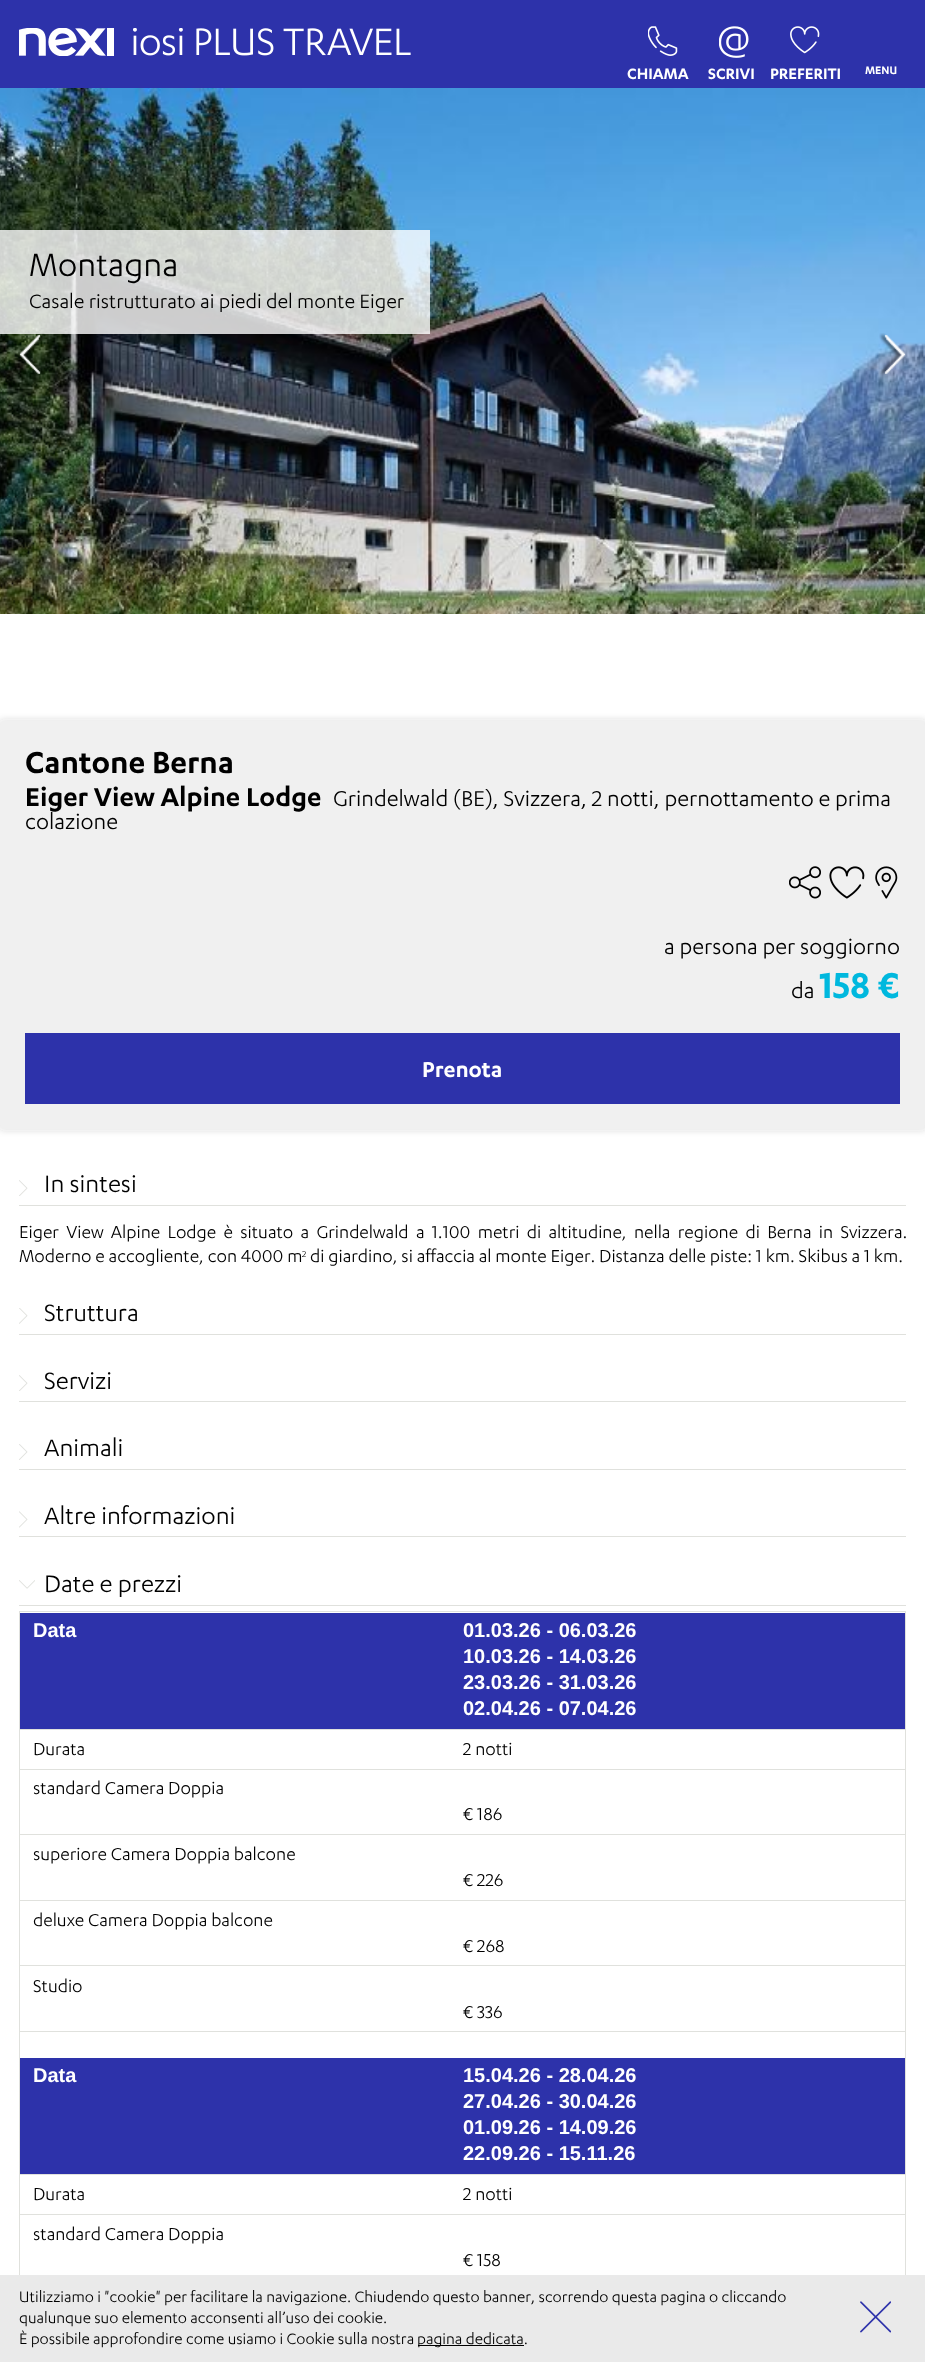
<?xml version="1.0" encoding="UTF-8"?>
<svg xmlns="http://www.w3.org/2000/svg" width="925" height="2362">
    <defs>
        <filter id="blur1" x="-50%" y="-200%" width="200%" height="500%"><feGaussianBlur stdDeviation="3"/></filter>
    </defs>
    <rect width="100%" height="100%" fill="#FFFFFF"/>
    <rect x="0" y="0" width="925" height="88" fill="#2D32AA"/>
    <image x="19" y="28" width="95" height="28" href="img_01.png"/>
    <image x="133" y="28" width="278" height="28" href="img_02.png"/>
    <image x="648" y="26" width="30" height="30" href="img_03.png"/>
    <text x="627" y="79" font-family="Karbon" font-size="17.5" font-weight="600" fill="#FFFFFF">CHIAMA</text>
    <image x="719" y="26" width="30" height="32" href="img_04.png"/>
    <text x="708" y="79" font-family="Karbon" font-size="17.5" font-weight="600" fill="#FFFFFF">SCRIVI</text>
    <image x="790" y="26" width="30" height="28" href="img_05.png"/>
    <text x="770" y="79" font-family="Karbon" font-size="17.5" font-weight="600" fill="#FFFFFF">PREFERITI</text>
    <text x="865" y="74" font-family="Karbon" font-size="12.5" font-weight="600" fill="#FFFFFF">MENU</text>
    <image x="0" y="88" width="925" height="526" href="img_06.png"/>
    <rect x="0" y="230" width="430" height="104" fill="#FFFFFF" fill-opacity="0.8"/>
    <text x="29" y="276" font-family="Karbon" font-size="37.5" fill="#000000">Montagna</text>
    <text x="29" y="308" font-family="Karbon" font-size="22.5" fill="#000000">Casale ristrutturato ai piedi del monte Eiger</text>
    <image x="19" y="333" width="26" height="42" href="img_07.png"/>
    <image x="879" y="333" width="27" height="43" href="img_08.png"/>
    <rect x="-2" y="719" width="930" height="412" rx="6" fill="#2C2B2C" fill-opacity="0.12" filter="url(#blur1)"/>
    <rect x="0" y="721" width="925" height="408" rx="4" fill="#F0F0F0"/>
    <text x="25" y="773" font-family="Karbon" font-size="35" font-weight="600" fill="#000000">Cantone Berna</text>
    <text x="25" y="806" font-family="Karbon" font-size="30" font-weight="600" fill="#000000">Eiger View Alpine Lodge</text>
    <text x="333" y="806" font-family="Karbon" font-size="25" fill="#000000">Grindelwald (BE), Svizzera, 2 notti, pernottamento e prima</text>
    <text x="25" y="829" font-family="Karbon" font-size="25" fill="#000000">colazione</text>
    <image x="789" y="866" width="32" height="33" href="img_09.png"/>
    <image x="829" y="866" width="36" height="33" href="img_10.png"/>
    <image x="875" y="866" width="23" height="33" href="img_11.png"/>
    <text x="664" y="954" font-family="Karbon" font-size="25" fill="#000000">a persona per soggiorno</text>
    <text x="791" y="998" font-family="Karbon" font-size="25" fill="#000000">da</text>
    <text x="819" y="998" font-family="Karbon" font-size="42" font-weight="600" fill="#00B8DE">158 €</text>
    <rect x="25" y="1033" width="875" height="71" fill="#2D32AA"/>
    <text x="422" y="1077" font-family="Karbon" font-size="25" font-weight="600" fill="#FFFFFF">Prenota</text>
    <rect x="19" y="1205" width="887" height="1" fill="#E0E1DD"/>
    <image x="19" y="1180" width="9" height="16" href="img_12.png"/>
    <text x="44" y="1192" font-family="Karbon" font-size="27.5" fill="#000000">In sintesi</text>
    <text font-family="Karbon" font-size="20" fill="#000000">
        <tspan x="19" y="1238" word-spacing="3.5">Eiger View Alpine Lodge è situato a Grindelwald a 1.100 metri di altitudine, nella regione di Berna in Svizzera.</tspan>
        <tspan x="19" y="1262">Moderno e accogliente, con 4000 m</tspan>
    </text>
    <text x="302" y="1257" font-family="Karbon" font-size="10" fill="#000000">2</text>
    <text x="310" y="1262" font-family="Karbon" font-size="20" fill="#000000">di giardino, si affaccia al monte Eiger. Distanza delle piste: 1 km. Skibus a 1 km.</text>
    <rect x="19" y="1334" width="887" height="1" fill="#E0E1DD"/>
    <image x="19" y="1308" width="9" height="16" href="img_13.png"/>
    <text x="44" y="1321" font-family="Karbon" font-size="27.5" fill="#000000">Struttura</text>
    <rect x="19" y="1401" width="887" height="1" fill="#E0E1DD"/>
    <image x="19" y="1375" width="9" height="16" href="img_12.png"/>
    <text x="44" y="1389" font-family="Karbon" font-size="27.5" fill="#000000">Servizi</text>
    <rect x="19" y="1469" width="887" height="1" fill="#E0E1DD"/>
    <image x="19" y="1444" width="9" height="16" href="img_14.png"/>
    <text x="44" y="1456" font-family="Karbon" font-size="27.5" fill="#000000">Animali</text>
    <rect x="19" y="1536" width="887" height="1" fill="#E0E1DD"/>
    <image x="19" y="1511" width="9" height="17" href="img_15.png"/>
    <text x="44" y="1524" font-family="Karbon" font-size="27.5" fill="#000000">Altre informazioni</text>
    <rect x="19" y="1605" width="887" height="1" fill="#E0E1DD"/>
    <image x="19" y="1580" width="16" height="9" href="img_16.png"/>
    <text x="44" y="1592" font-family="Karbon" font-size="27.5" fill="#000000">Date e prezzi</text>
    <rect x="19.5" y="1611.5" width="886" height="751" fill="none" stroke="#E0E1DD"/>
    <rect x="20" y="1613" width="885" height="116" fill="#2D32AA"/>
    <rect x="20" y="1729" width="885" height="1" fill="#E0E1DD"/>
    <text x="33" y="1637" font-family="Liberation Sans" font-size="20" font-weight="700" fill="#FFFFFF">Data</text>
    <text font-family="Liberation Sans" font-size="20" font-weight="700" fill="#FFFFFF">
        <tspan x="463" y="1637">01.03.26 - 06.03.26</tspan>
        <tspan x="463" y="1663">10.03.26 - 14.03.26</tspan>
        <tspan x="463" y="1689">23.03.26 - 31.03.26</tspan>
        <tspan x="463" y="1715">02.04.26 - 07.04.26</tspan>
    </text>
    <rect x="20" y="1769" width="885" height="1" fill="#E0E1DD"/>
    <text x="33" y="1755" font-family="Karbon" font-size="20" fill="#000000">Durata</text>
    <text x="463" y="1755" font-family="Karbon" font-size="20" fill="#000000">2 notti</text>
    <rect x="20" y="1834" width="885" height="1" fill="#E0E1DD"/>
    <text x="33" y="1794" font-family="Karbon" font-size="20" fill="#000000">standard Camera Doppia</text>
    <text x="463" y="1820" font-family="Karbon" font-size="20" fill="#000000">€ 186</text>
    <rect x="20" y="1900" width="885" height="1" fill="#E0E1DD"/>
    <text x="33" y="1860" font-family="Karbon" font-size="20" fill="#000000">superiore Camera Doppia balcone</text>
    <text x="463" y="1886" font-family="Karbon" font-size="20" fill="#000000">€ 226</text>
    <rect x="20" y="1965" width="885" height="1" fill="#E0E1DD"/>
    <text x="33" y="1926" font-family="Karbon" font-size="20" fill="#000000">deluxe Camera Doppia balcone</text>
    <text x="463" y="1952" font-family="Karbon" font-size="20" fill="#000000">€ 268</text>
    <rect x="20" y="2031" width="885" height="1" fill="#E0E1DD"/>
    <text x="33" y="1992" font-family="Karbon" font-size="20" fill="#000000">Studio</text>
    <text x="463" y="2018" font-family="Karbon" font-size="20" fill="#000000">€ 336</text>
    <rect x="20" y="2058" width="885" height="116" fill="#2D32AA"/>
    <rect x="20" y="2174" width="885" height="1" fill="#E0E1DD"/>
    <text x="33" y="2082" font-family="Liberation Sans" font-size="20" font-weight="700" fill="#FFFFFF">Data</text>
    <text font-family="Liberation Sans" font-size="20" font-weight="700" fill="#FFFFFF">
        <tspan x="463" y="2082">15.04.26 - 28.04.26</tspan>
        <tspan x="463" y="2108">27.04.26 - 30.04.26</tspan>
        <tspan x="463" y="2134">01.09.26 - 14.09.26</tspan>
        <tspan x="463" y="2160">22.09.26 - 15.11.26</tspan>
    </text>
    <rect x="20" y="2214" width="885" height="1" fill="#E0E1DD"/>
    <text x="33" y="2200" font-family="Karbon" font-size="20" fill="#000000">Durata</text>
    <text x="463" y="2200" font-family="Karbon" font-size="20" fill="#000000">2 notti</text>
    <text x="33" y="2240" font-family="Karbon" font-size="20" fill="#000000">standard Camera Doppia</text>
    <text x="463" y="2266" font-family="Karbon" font-size="20" fill="#000000">€ 158</text>
    <rect x="0" y="2275" width="925" height="87" fill="#EAEAEA"/>
    <text font-family="Karbon" font-size="17.5" fill="#000000">
        <tspan x="19" y="2302">Utilizziamo i "cookie" per facilitare la navigazione. Chiudendo questo banner, scorrendo questa pagina o cliccando</tspan>
        <tspan x="19" y="2323">qualunque suo elemento acconsenti all’uso dei cookie.</tspan>
        <tspan x="19" y="2344">È possibile approfondire come usiamo i Cookie sulla nostra</tspan>
    </text>
    <rect x="418" y="2345" width="106" height="1" fill="#000000"/>
    <text x="417" y="2344" font-family="Karbon" font-size="17.5" fill="#000000">pagina dedicata.</text>
    <image x="860" y="2301" width="31" height="32" href="img_17.png"/>
</svg>
